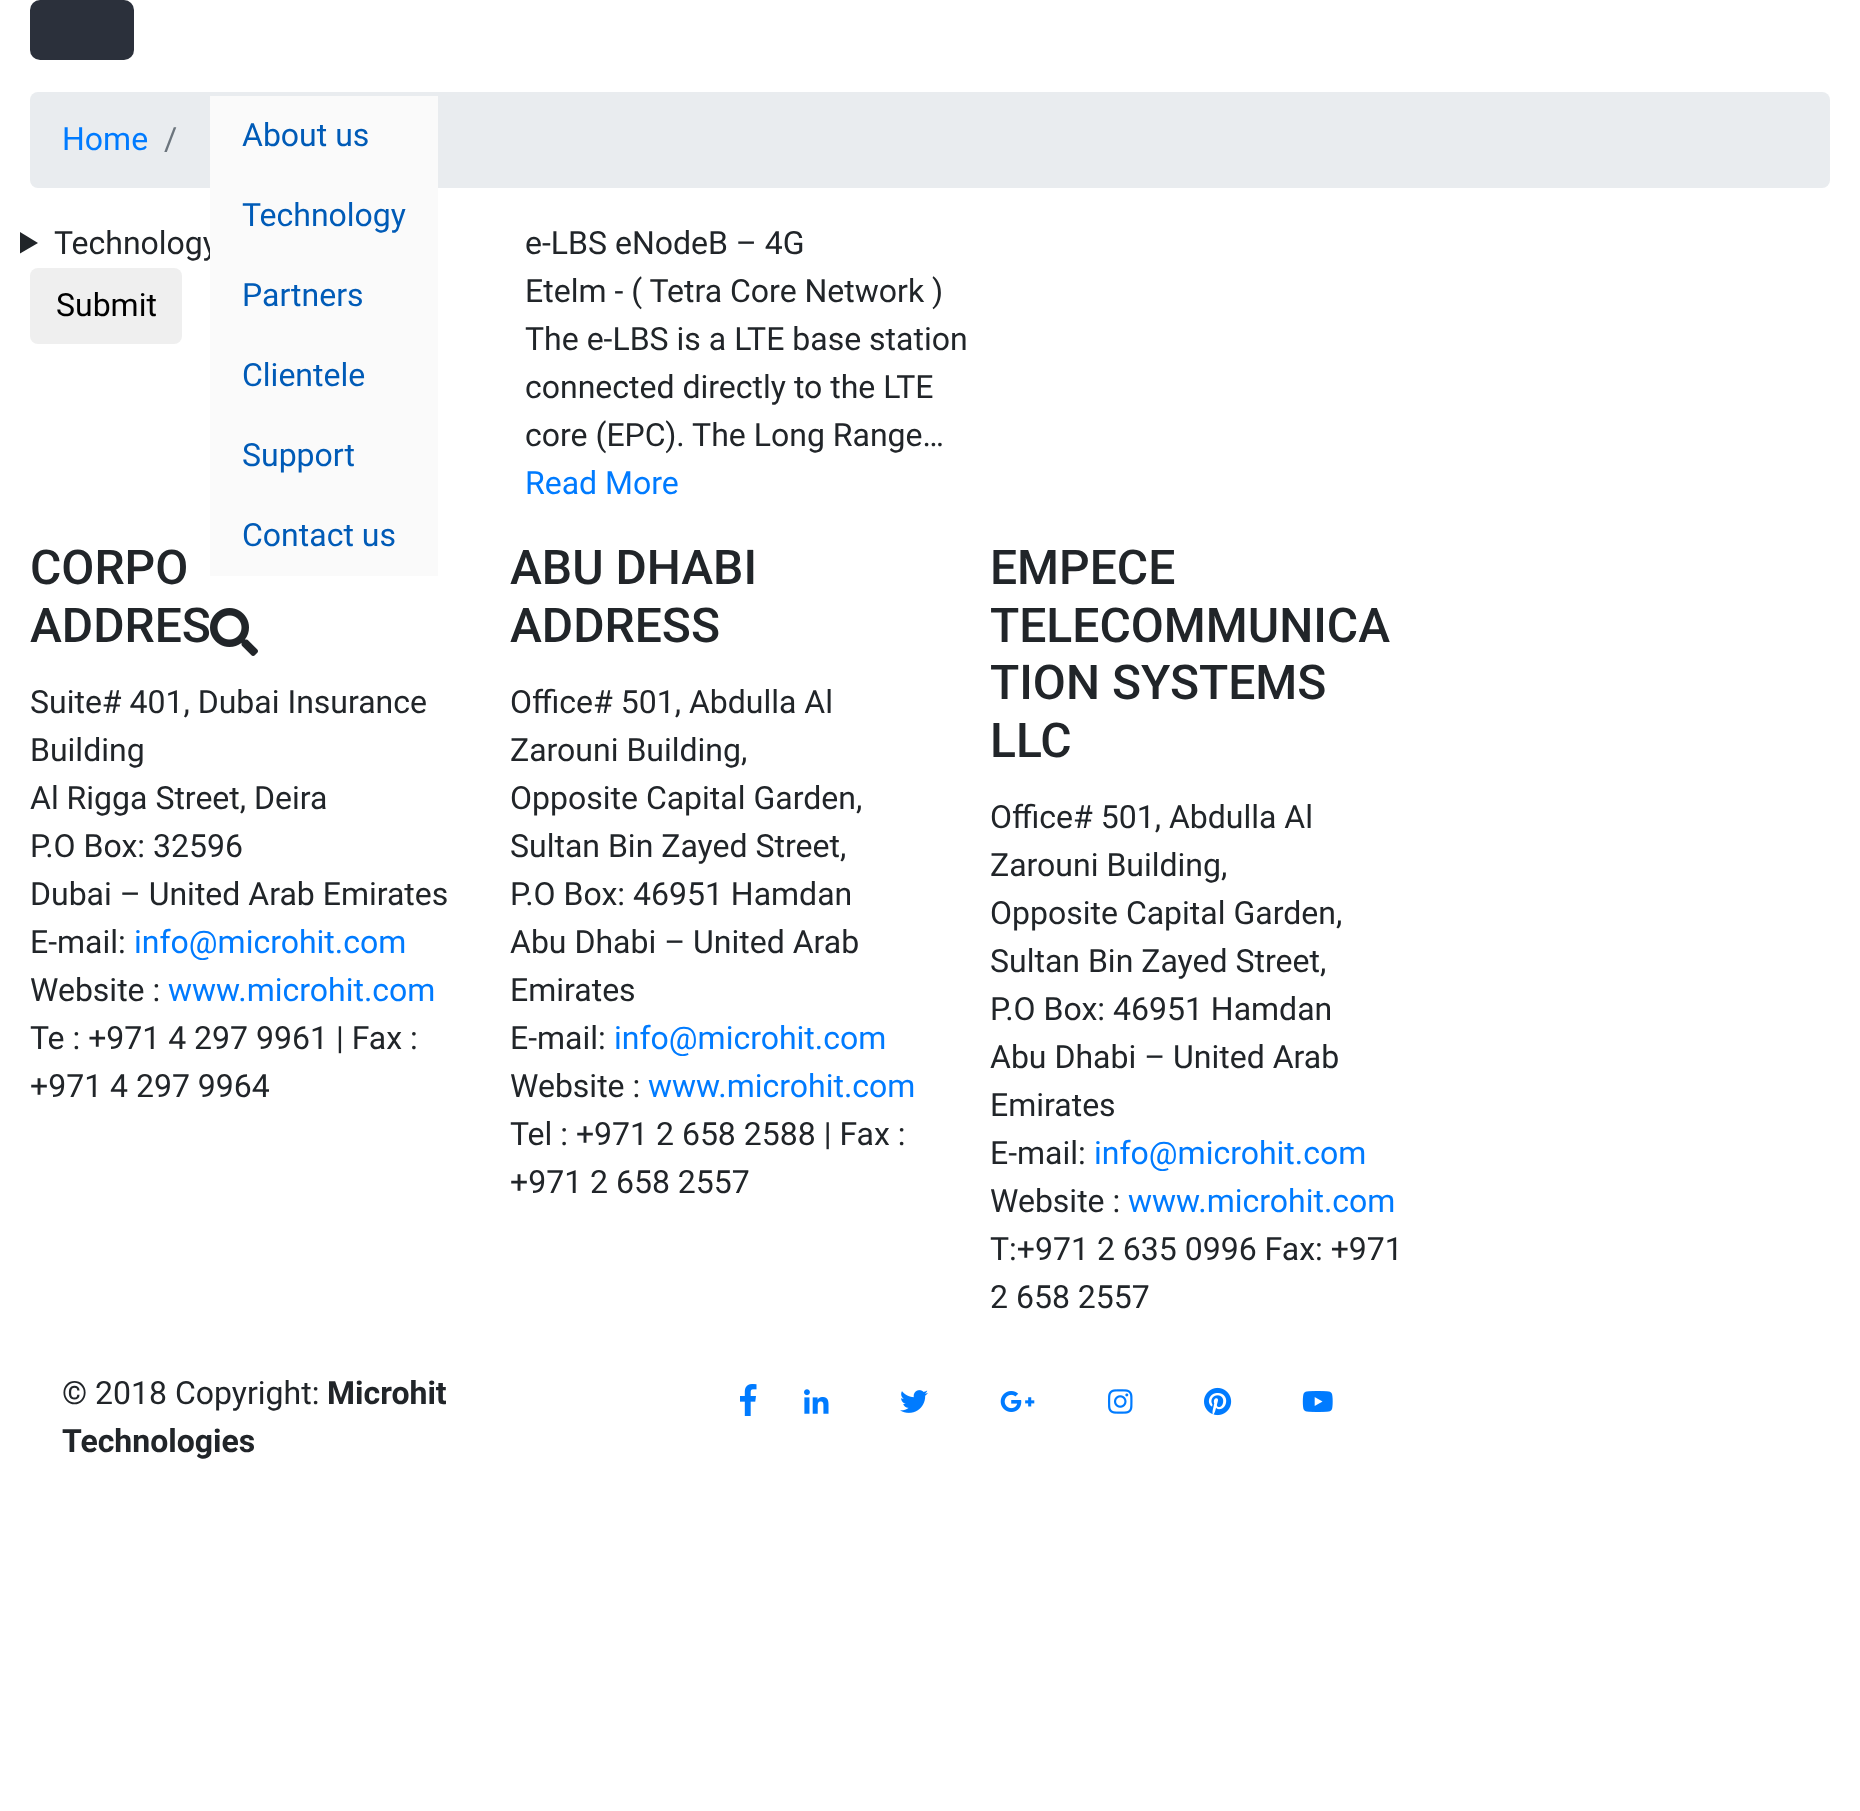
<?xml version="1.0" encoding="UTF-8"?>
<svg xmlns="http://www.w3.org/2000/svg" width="1860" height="1811">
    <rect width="100%" height="100%" fill="#FFFFFF"/>
    <rect x="30" y="0" width="104" height="60" rx="10" fill="#2B303B"/>
    <rect x="30" y="92" width="1800" height="96" rx="8" fill="#E9ECEF"/>
    <text x="54" y="254" font-family="Roboto" font-size="32" fill="#212529">Technology</text>
    <rect x="210" y="96" width="228" height="480" fill="#FAFAFA"/>
    <text x="242" y="146" font-family="Roboto" font-size="32" fill="#005BB7">About us</text>
    <text x="242" y="226" font-family="Roboto" font-size="32" fill="#005BB7">Technology</text>
    <text x="242" y="306" font-family="Roboto" font-size="32" fill="#005BB7">Partners</text>
    <text x="242" y="386" font-family="Roboto" font-size="32" fill="#005BB7">Clientele</text>
    <text x="242" y="466" font-family="Roboto" font-size="32" fill="#005BB7">Support</text>
    <text x="242" y="546" font-family="Roboto" font-size="32" fill="#005BB7">Contact us</text>
    <image x="210" y="608" width="48" height="48" href="img_01.png"/>
    <text x="62" y="150" font-family="Roboto" font-size="32" fill="#007BFF">Home</text>
    <text x="164" y="150" font-family="Roboto" font-size="32" fill="#6C757D">/</text>
    <path d="M 20 232 L 38 243 L 20 253.5 Z" fill="#212529"/>
    <rect x="30" y="268" width="152" height="76" rx="8" fill="#EFEFEF"/>
    <text x="56" y="316" font-family="Roboto" font-size="32" fill="#000000">Submit</text>
    <text font-family="Roboto" font-size="32" fill="#212529">
        <tspan x="525" y="254">e-LBS eNodeB – 4G</tspan>
        <tspan x="525" y="302">Etelm - ( Tetra Core Network )</tspan>
        <tspan x="525" y="350">The e-LBS is a LTE base station</tspan>
        <tspan x="525" y="398">connected directly to the LTE</tspan>
        <tspan x="525" y="446">core (EPC). The Long Range…</tspan>
    </text>
    <text x="525" y="494" font-family="Roboto" font-size="32" fill="#007BFF">Read More</text>
    <text font-family="Roboto" font-size="48" font-weight="500" fill="#212529">
        <tspan x="30" y="584">CORPO</tspan>
        <tspan x="30" y="642">ADDRES</tspan>
    </text>
    <text font-family="Roboto" font-size="32" fill="#212529">
        <tspan x="30" y="713">Suite# 401, Dubai Insurance</tspan>
        <tspan x="30" y="761">Building</tspan>
        <tspan x="30" y="809">Al Rigga Street, Deira</tspan>
        <tspan x="30" y="857">P.O Box: 32596</tspan>
        <tspan x="30" y="905">Dubai – United Arab Emirates</tspan>
        <tspan x="30" y="953">E-mail:</tspan>
    </text>
    <text x="134" y="953" font-family="Roboto" font-size="32" fill="#007BFF">info@microhit.com</text>
    <text x="30" y="1001" font-family="Roboto" font-size="32" fill="#212529">Website :</text>
    <text x="168" y="1001" font-family="Roboto" font-size="32" fill="#007BFF">www.microhit.com</text>
    <text font-family="Roboto" font-size="32" fill="#212529">
        <tspan x="30" y="1049">Te : +971 4 297 9961 | Fax :</tspan>
        <tspan x="30" y="1097">+971 4 297 9964</tspan>
    </text>
    <text font-family="Roboto" font-size="48" font-weight="500" fill="#212529">
        <tspan x="510" y="584">ABU DHABI</tspan>
        <tspan x="510" y="642">ADDRESS</tspan>
    </text>
    <text font-family="Roboto" font-size="32" fill="#212529">
        <tspan x="510" y="713">Office# 501, Abdulla Al</tspan>
        <tspan x="510" y="761">Zarouni Building,</tspan>
        <tspan x="510" y="809">Opposite Capital Garden,</tspan>
        <tspan x="510" y="857">Sultan Bin Zayed Street,</tspan>
        <tspan x="510" y="905">P.O Box: 46951 Hamdan</tspan>
        <tspan x="510" y="953">Abu Dhabi – United Arab</tspan>
        <tspan x="510" y="1001">Emirates</tspan>
        <tspan x="510" y="1049">E-mail:</tspan>
    </text>
    <text x="614" y="1049" font-family="Roboto" font-size="32" fill="#007BFF">info@microhit.com</text>
    <text x="510" y="1097" font-family="Roboto" font-size="32" fill="#212529">Website :</text>
    <text x="648" y="1097" font-family="Roboto" font-size="32" fill="#007BFF">www.microhit.com</text>
    <text font-family="Roboto" font-size="32" fill="#212529">
        <tspan x="510" y="1145">Tel : +971 2 658 2588 | Fax :</tspan>
        <tspan x="510" y="1193">+971 2 658 2557</tspan>
    </text>
    <text font-family="Roboto" font-size="48" font-weight="500" fill="#212529">
        <tspan x="990" y="584">EMPECE</tspan>
        <tspan x="990" y="642">TELECOMMUNICA</tspan>
        <tspan x="990" y="699">TION SYSTEMS</tspan>
        <tspan x="990" y="757">LLC</tspan>
    </text>
    <text font-family="Roboto" font-size="32" fill="#212529">
        <tspan x="990" y="828">Office# 501, Abdulla Al</tspan>
        <tspan x="990" y="876">Zarouni Building,</tspan>
        <tspan x="990" y="924">Opposite Capital Garden,</tspan>
        <tspan x="990" y="972">Sultan Bin Zayed Street,</tspan>
        <tspan x="990" y="1020">P.O Box: 46951 Hamdan</tspan>
        <tspan x="990" y="1068">Abu Dhabi – United Arab</tspan>
        <tspan x="990" y="1116">Emirates</tspan>
        <tspan x="990" y="1164">E-mail:</tspan>
    </text>
    <text x="1094" y="1164" font-family="Roboto" font-size="32" fill="#007BFF">info@microhit.com</text>
    <text x="990" y="1212" font-family="Roboto" font-size="32" fill="#212529">Website :</text>
    <text x="1128" y="1212" font-family="Roboto" font-size="32" fill="#007BFF">www.microhit.com</text>
    <text font-family="Roboto" font-size="32" fill="#212529">
        <tspan x="990" y="1260">T:+971 2 635 0996 Fax: +971</tspan>
        <tspan x="990" y="1308">2 658 2557</tspan>
    </text>
    <text x="62" y="1404" font-family="Roboto" font-size="32" fill="#212529">© 2018 Copyright:</text>
    <text x="327" y="1404" font-family="Roboto" font-size="32" font-weight="700" fill="#212529">Microhit</text>
    <text x="62" y="1452" font-family="Roboto" font-size="32" font-weight="700" fill="#212529">Technologies</text>
    <image x="740" y="1384" width="17" height="32" href="img_02.png"/>
    <image x="804" y="1389" width="25" height="25" href="img_03.png"/>
    <image x="900" y="1390" width="28" height="23" href="img_04.png"/>
    <image x="1000" y="1391" width="35" height="21" href="img_05.png"/>
    <image x="1108" y="1389" width="25" height="25" href="img_06.png"/>
    <image x="1204" y="1387" width="28" height="29" href="img_07.png"/>
    <image x="1302" y="1391" width="31" height="21" href="img_08.png"/>
</svg>
